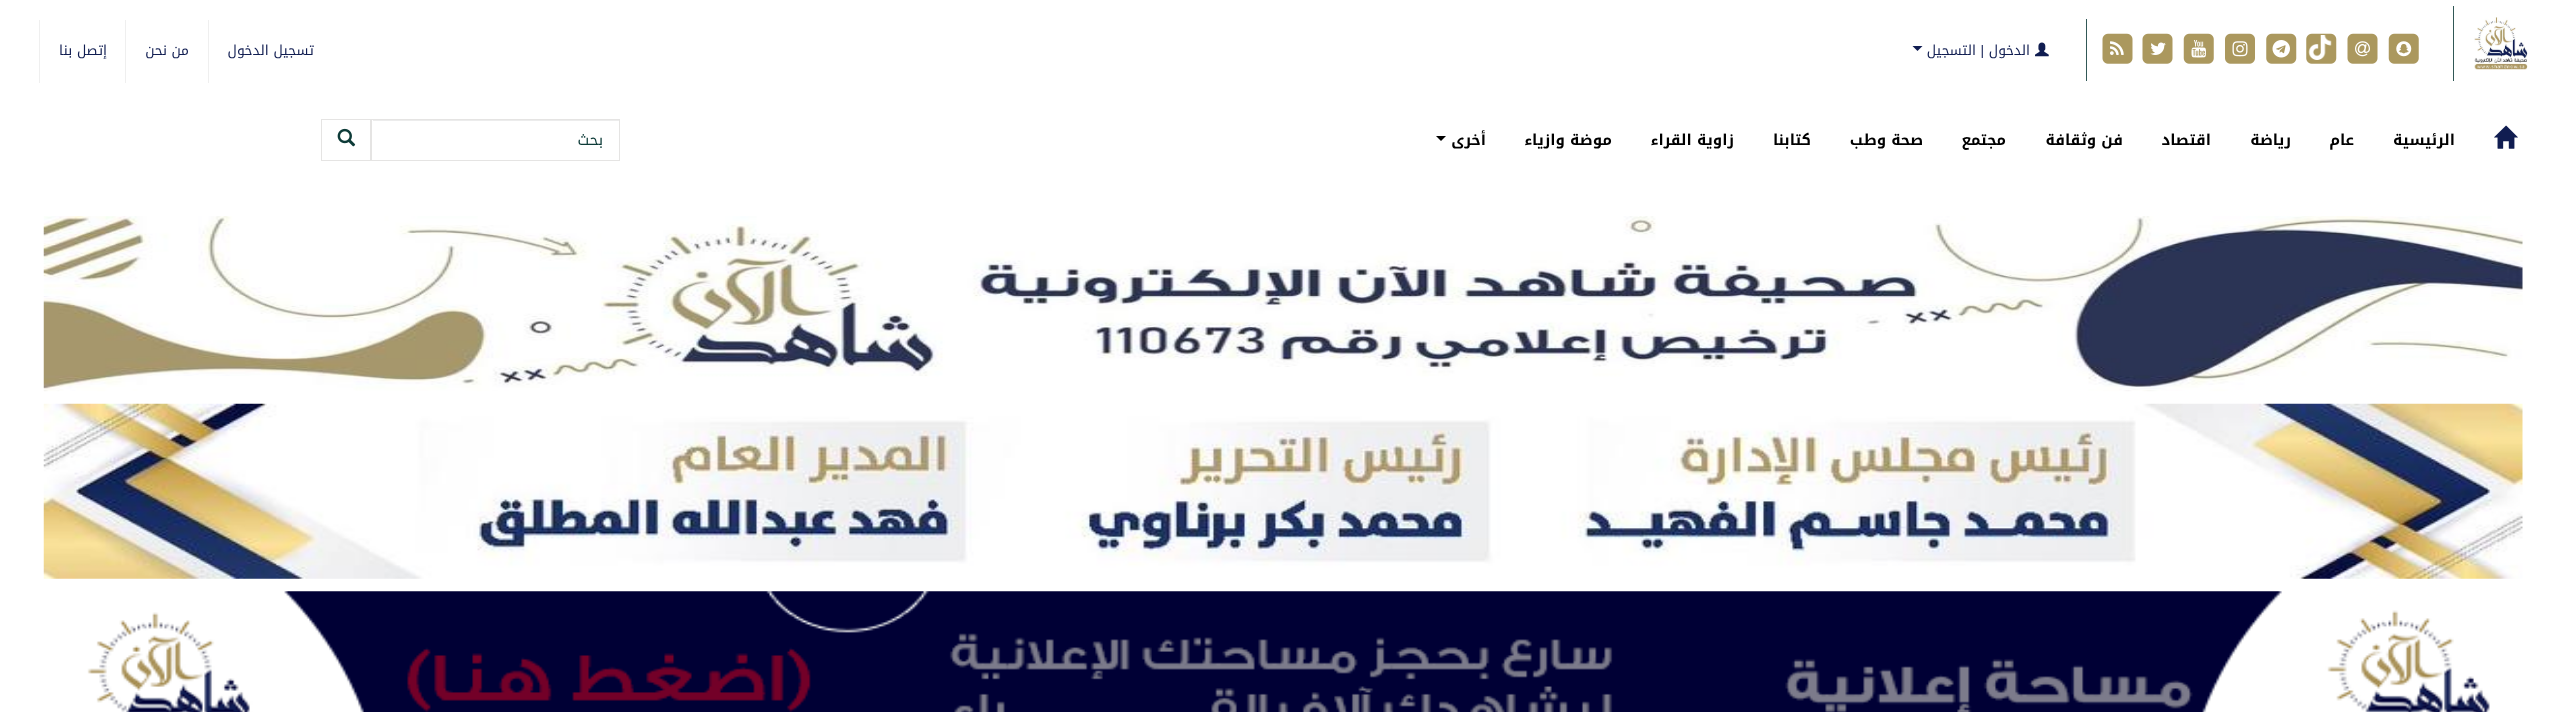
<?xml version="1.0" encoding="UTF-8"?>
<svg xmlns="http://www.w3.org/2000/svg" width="2553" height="712">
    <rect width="100%" height="100%" fill="#FFFFFF"/>
    <rect x="2453" y="6" width="1" height="75" fill="#315856"/>
    <image x="2474" y="17" width="54" height="53" href="img_01.png"/>
    <rect x="2086" y="19" width="1" height="62" fill="#315856"/>
    <image x="2388" y="33" width="31" height="31" href="img_02.png"/>
    <image x="2396" y="41" width="16" height="16" href="img_03.png"/>
    <image x="2347" y="33" width="31" height="31" href="img_04.png"/>
    <image x="2355" y="41" width="15" height="16" href="img_05.png"/>
    <image x="2306" y="33" width="31" height="31" href="img_06.png"/>
    <image x="2308" y="35" width="24" height="25" href="img_07.png"/>
    <image x="2266" y="33" width="31" height="31" href="img_06.png"/>
    <image x="2272" y="40" width="18" height="18" href="img_08.png"/>
    <image x="2225" y="33" width="30" height="31" href="img_09.png"/>
    <image x="2232" y="41" width="16" height="16" href="img_10.png"/>
    <image x="2183" y="33" width="31" height="31" href="img_02.png"/>
    <image x="2191" y="40" width="15" height="18" href="img_11.png"/>
    <image x="2142" y="33" width="31" height="31" href="img_04.png"/>
    <image x="2150" y="42" width="16" height="13" href="img_12.png"/>
    <image x="2102" y="33" width="31" height="31" href="img_04.png"/>
    <image x="2110" y="41" width="14" height="14" href="img_13.png"/>
    <image x="2035" y="42" width="14" height="15" href="img_14.png"/>
    <text x="2030" y="55" font-family="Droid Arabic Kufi" font-size="13.75" direction="rtl" fill="#101D51">الدخول</text>
    <text x="1984" y="55" font-family="Liberation Sans" font-size="13.75" direction="rtl" fill="#101D51">|</text>
    <text x="1976" y="55" font-family="Droid Arabic Kufi" font-size="13.75" direction="rtl" fill="#101D51">التسجيل</text>
    <path d="M 1912.5 46 H 1922.5 L 1917.5 51 Z" fill="#101D51"/>
    <rect x="208" y="20" width="1" height="63" fill="#EFEFEF"/>
    <text x="314" y="55" font-family="Droid Arabic Kufi" font-size="13.75" direction="rtl" fill="#101D51">تسجيل الدخول</text>
    <rect x="125" y="20" width="1" height="63" fill="#EFEFEF"/>
    <text x="189" y="55" font-family="Droid Arabic Kufi" font-size="13.75" direction="rtl" fill="#101D51">من نحن</text>
    <rect x="39" y="20" width="1" height="63" fill="#EFEFEF"/>
    <text x="107" y="55" font-family="Droid Arabic Kufi" font-size="13.75" direction="rtl" fill="#101D51">إتصل بنا</text>
    <image x="2494" y="125" width="24" height="24" href="img_15.png"/>
    <text x="2455" y="145" font-family="Droid Arabic Kufi" font-size="15" font-weight="700" direction="rtl" fill="#000000">الرئيسية</text>
    <text x="2354" y="145" font-family="Droid Arabic Kufi" font-size="15" font-weight="700" direction="rtl" fill="#000000">عام</text>
    <text x="2291" y="145" font-family="Droid Arabic Kufi" font-size="15" font-weight="700" direction="rtl" fill="#000000">رياضة</text>
    <text x="2211" y="145" font-family="Droid Arabic Kufi" font-size="15" font-weight="700" direction="rtl" fill="#000000">اقتصاد</text>
    <text x="2123" y="145" font-family="Droid Arabic Kufi" font-size="15" font-weight="700" direction="rtl" fill="#000000">فن وثقافة</text>
    <text x="2006" y="145" font-family="Droid Arabic Kufi" font-size="15" font-weight="700" direction="rtl" fill="#000000">مجتمع</text>
    <text x="1923" y="145" font-family="Droid Arabic Kufi" font-size="15" font-weight="700" direction="rtl" fill="#000000">صحة وطب</text>
    <text x="1811" y="145" font-family="Droid Arabic Kufi" font-size="15" font-weight="700" direction="rtl" fill="#000000">كتابنا</text>
    <text x="1734" y="145" font-family="Droid Arabic Kufi" font-size="15" font-weight="700" direction="rtl" fill="#000000">زاوية القراء</text>
    <text x="1612" y="145" font-family="Droid Arabic Kufi" font-size="15" font-weight="700" direction="rtl" fill="#000000">موضة وازياء</text>
    <text x="1486" y="145" font-family="Droid Arabic Kufi" font-size="15" font-weight="700" direction="rtl" fill="#000000">أخرى</text>
    <path d="M 1436 136 H 1446 L 1441 141 Z" fill="#000000"/>
    <rect x="373" y="120" width="246" height="1" fill="#ECECEC"/>
    <rect x="371.5" y="119.5" width="248" height="41" fill="none" stroke="#E5E4E3"/>
    <text x="603" y="145" font-family="Droid Arabic Kufi" font-size="15" direction="rtl" fill="#0D3B38">بحث</text>
    <rect x="321.5" y="119.5" width="49" height="41" fill="none" stroke="#E5E4E3"/>
    <image x="337" y="128" width="19" height="19" href="img_16.png"/>
    <image x="43" y="216" width="2480" height="176" href="img_17.png"/>
    <image x="43" y="403" width="2480" height="176" href="img_18.png"/>
    <image x="87" y="591" width="2403" height="121" href="img_19.png"/>
</svg>
